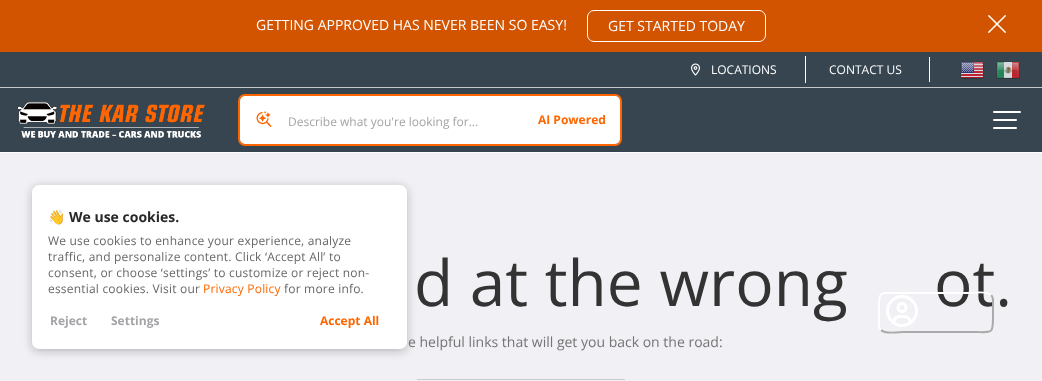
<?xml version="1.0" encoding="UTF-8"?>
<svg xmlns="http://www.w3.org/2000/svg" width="1042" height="381">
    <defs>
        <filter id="blur1" x="-50%" y="-200%" width="200%" height="500%"><feGaussianBlur stdDeviation="4"/></filter>
    </defs>
    <rect width="100%" height="100%" fill="#FFFFFF"/>
    <rect x="0" y="0" width="1042" height="52" fill="#D35400"/>
    <text x="256" y="30" font-family="Open Sans" font-size="14" fill="#FFFFFF">GETTING APPROVED HAS NEVER BEEN SO EASY!</text>
    <rect x="587.5" y="10.5" width="178" height="31" rx="6.5" fill="none" stroke="#FFFFFF"/>
    <text x="608" y="31" font-family="Open Sans" font-size="14" fill="#FFFFFF">GET STARTED TODAY</text>
    <image x="988" y="15" width="18" height="18" href="img_01.png"/>
    <rect x="0" y="52" width="1042" height="35" fill="#36454F"/>
    <rect x="0" y="87" width="1042" height="1" fill="#C7C7C7"/>
    <image x="691" y="63" width="9" height="13" href="img_02.png"/>
    <text x="711" y="74" font-family="Open Sans" font-size="12" fill="#FFFFFF">LOCATIONS</text>
    <rect x="805" y="56" width="1" height="27" fill="#FFFFFF"/>
    <text x="829" y="74" font-family="Open Sans" font-size="12" fill="#FFFFFF">CONTACT US</text>
    <rect x="929" y="57" width="1" height="25" fill="#FFFFFF"/>
    <image x="960" y="61" width="24" height="18" href="img_03.png"/>
    <image x="996" y="61" width="24" height="18" href="img_04.png"/>
    <rect x="0" y="88" width="1042" height="64" fill="#36454F"/>
    <image x="17" y="101" width="188" height="37" href="img_05.png"/>
    <rect x="239" y="95" width="382" height="50" rx="6" fill="none" stroke="#FF6600" stroke-width="2"/>
    <rect x="240" y="96" width="380" height="48" rx="5" fill="#FFFFFF"/>
    <image x="256" y="111" width="16" height="16" href="img_06.png"/>
    <text x="288" y="126" font-family="Open Sans" font-size="12" fill="#A4A4A8">Describe what you're looking for...</text>
    <text x="538" y="124" font-family="Open Sans" font-size="12" font-weight="700" fill="#FF6600">AI Powered</text>
    <rect x="993" y="111" width="28" height="2" rx="1" fill="#FFFFFF"/>
    <rect x="993" y="119" width="24" height="2" rx="1" fill="#FFFFFF"/>
    <rect x="993" y="127" width="24" height="2" rx="1" fill="#FFFFFF"/>
    <rect x="0" y="153" width="1042" height="228" fill="#F0F0F5"/>
    <rect x="32" y="187" width="375" height="164" rx="7" fill="#333333" fill-opacity="0.3" filter="url(#blur1)"/>
    <rect x="32" y="185" width="375" height="164" rx="7" fill="#FFFFFF"/>
    <text x="48" y="222" font-family="Noto Color Emoji" font-size="14" font-weight="700" fill="#272727">👋</text>
    <text x="69" y="222" font-family="Open Sans" font-size="14" font-weight="700" fill="#272727">We use cookies.</text>
    <text font-family="Open Sans" font-size="12" letter-spacing="0.2" fill="#68666A">
        <tspan x="48" y="245">We use cookies to enhance your experience, analyze</tspan>
        <tspan x="48" y="261">traffic, and personalize content. Click ‘Accept All’ to</tspan>
        <tspan x="48" y="277">consent, or choose ‘settings’ to customize or reject non-</tspan>
        <tspan x="48" y="293">essential cookies. Visit our</tspan>
    </text>
    <text x="203" y="293" font-family="Open Sans" font-size="12" letter-spacing="0.2" fill="#FF6600">Privacy Policy</text>
    <text x="284" y="293" font-family="Open Sans" font-size="12" letter-spacing="0.2" fill="#68666A">for more info.</text>
    <text x="50" y="325" font-family="Open Sans" font-size="12" font-weight="700" fill="#A4A4A8">Reject</text>
    <text x="111" y="325" font-family="Open Sans" font-size="12" font-weight="700" fill="#A4A4A8">Settings</text>
    <text x="320" y="325" font-family="Open Sans" font-size="12" font-weight="700" fill="#FF6600">Accept All</text>
    <text x="414" y="306" font-family="Open Sans" font-size="64" fill="#333333">d at the wrong</text>
    <text x="934" y="306" font-family="Open Sans" font-size="64" fill="#333333">ot.</text>
    <text x="408" y="347" font-family="Open Sans" font-size="14" fill="#757575">e helpful links that will get you back on the road:</text>
    <rect x="417" y="379" width="208" height="1" fill="#CCCCCC"/>
    <path d="M 991 295 C 993.5 297 993 300.5 993 303.5 V 312.5 C 993 335.5 994.5 332 970 332 H 902 C 899.5 332 885 334.5 881 330" fill="none" stroke="#AAAAAA" stroke-width="2"/>
    <path d="M 881 330 C 878.5 328 879 324.5 879 321.5 V 312.5 C 879 289.5 877.5 293 902 293 H 970 C 972.5 293 987 290.5 991 295" fill="none" stroke="#FFFFFF" stroke-width="2"/>
    <image x="886" y="295" width="32" height="32" href="img_07.png"/>
</svg>
